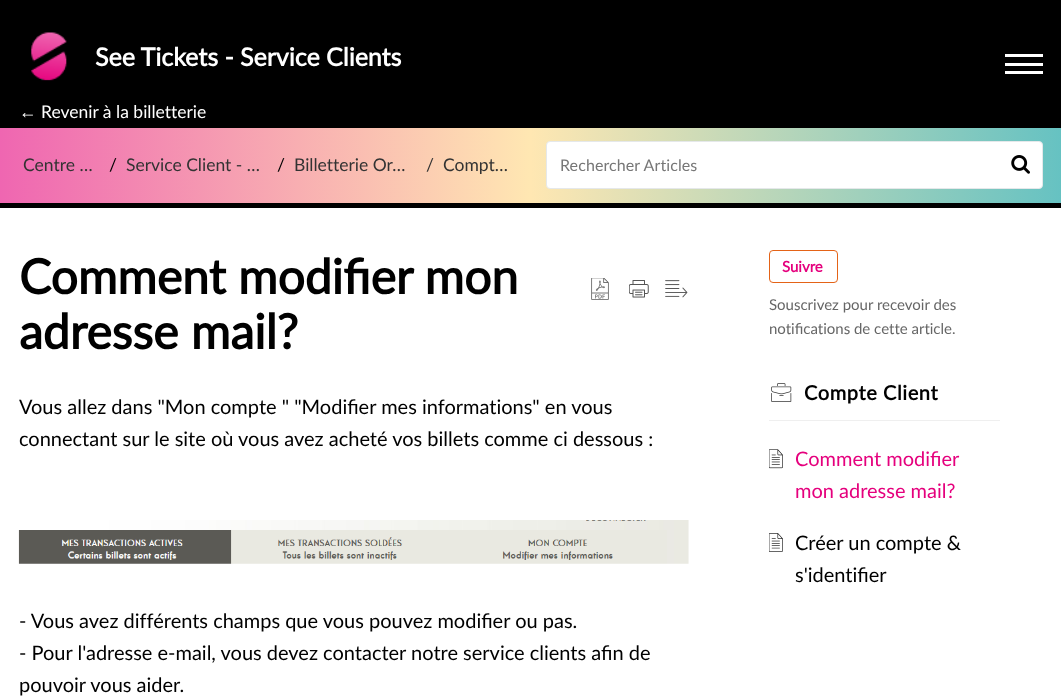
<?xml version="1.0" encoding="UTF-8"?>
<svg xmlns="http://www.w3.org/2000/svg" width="1061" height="700">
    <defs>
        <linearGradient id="g1" gradientUnits="userSpaceOnUse" x1="0" y1="165" x2="1061" y2="165"><stop offset="0" stop-color="#EF66B1"/><stop offset="0.5" stop-color="#FFE7B2"/><stop offset="1" stop-color="#66C2C2"/></linearGradient>
    </defs>
    <rect width="100%" height="100%" fill="#000000"/>
    <image x="31" y="32" width="36" height="49" href="img_01.png"/>
    <text x="95" y="66" font-family="Lato" font-size="25" font-weight="700" fill="#FFFFFF">See Tickets - Service Clients</text>
    <rect x="1005" y="63" width="38" height="3" fill="#FFFFFF"/>
    <rect x="1005" y="54" width="38" height="3" fill="#FFFFFF"/>
    <rect x="1005" y="71" width="38" height="3" fill="#FFFFFF"/>
    <text x="19" y="118" font-family="Liberation Sans" font-size="17.5" fill="#FFFFFF">←</text>
    <text x="41" y="118" font-family="Lato" font-size="17.5" fill="#FFFFFF">Revenir à la billetterie</text>
    <rect x="0" y="128" width="1061" height="75" fill="url(#g1)"/>
    <text x="23" y="171" font-family="Lato" font-size="17.5" fill="#333333">Centre …</text>
    <text x="109" y="171" font-family="Lato" font-size="17.5" fill="#000000">/</text>
    <text x="126" y="171" font-family="Lato" font-size="17.5" fill="#333333">Service Client - …</text>
    <text x="277" y="171" font-family="Lato" font-size="17.5" fill="#000000">/</text>
    <text x="294" y="171" font-family="Lato" font-size="17.5" fill="#333333">Billetterie Or…</text>
    <text x="426" y="171" font-family="Lato" font-size="17.5" fill="#333333">/</text>
    <text x="443" y="171" font-family="Lato" font-size="17.5" fill="#333333">Compt…</text>
    <rect x="546.5" y="141.5" width="496" height="47" rx="3.5" fill="#FFFFFF" stroke="#E5E8EA"/>
    <text x="560" y="171" font-family="Lato" font-size="16" letter-spacing="0.1" fill="#777777">Rechercher Articles</text>
    <image x="1011" y="155" width="19" height="19" href="img_02.png"/>
    <rect x="0" y="208" width="1061" height="492" fill="#FFFFFF"/>
    <text font-family="Lato" font-size="48" font-weight="700" fill="#000000">
        <tspan x="19" y="294">Comment modifier mon</tspan>
        <tspan x="19" y="349">adresse mail?</tspan>
    </text>
    <image x="591" y="278" width="18" height="22" href="img_03.png"/>
    <image x="629" y="280" width="20" height="18" href="img_04.png"/>
    <image x="665" y="280" width="23" height="18" href="img_05.png"/>
    <text font-family="Lato" font-size="20" fill="#000000">
        <tspan x="19" y="414">Vous allez dans "Mon compte " "Modifier mes informations" en vous</tspan>
        <tspan x="19" y="446">connectant sur le site où vous avez acheté vos billets comme ci dessous :</tspan>
    </text>
    <image x="18" y="520" width="671" height="44" href="img_06.png"/>
    <text font-family="Lato" font-size="20" fill="#000000">
        <tspan x="19" y="628">- Vous avez différents champs que vous pouvez modifier ou pas.</tspan>
        <tspan x="19" y="660">- Pour l'adresse e-mail, vous devez contacter notre service clients afin de</tspan>
        <tspan x="19" y="692">pouvoir vous aider.</tspan>
    </text>
    <rect x="769.5" y="250.5" width="68" height="32" rx="3.5" fill="none" stroke="#E46317"/>
    <text x="782" y="272" font-family="Lato" font-size="15" font-weight="700" fill="#E5007D">Suivre</text>
    <text font-family="Lato" font-size="15" fill="#666666">
        <tspan x="769" y="310">Souscrivez pour recevoir des</tspan>
        <tspan x="769" y="334">notifications de cette article.</tspan>
    </text>
    <rect x="769" y="420" width="231" height="1" fill="#EFEFEF"/>
    <image x="771" y="383" width="21" height="19" href="img_07.png"/>
    <text x="804" y="400" font-family="Lato" font-size="20" font-weight="700" letter-spacing="0.6" fill="#000000">Compte Client</text>
    <image x="769" y="449" width="14" height="20" href="img_08.png"/>
    <text font-family="Lato" font-size="20" fill="#E5007D">
        <tspan x="795" y="466">Comment modifier</tspan>
        <tspan x="795" y="498">mon adresse mail?</tspan>
    </text>
    <image x="769" y="533" width="14" height="19" href="img_09.png"/>
    <text font-family="Lato" font-size="20" fill="#000000">
        <tspan x="795" y="550">Créer un compte &amp;</tspan>
        <tspan x="795" y="582">s'identifier</tspan>
    </text>
</svg>
